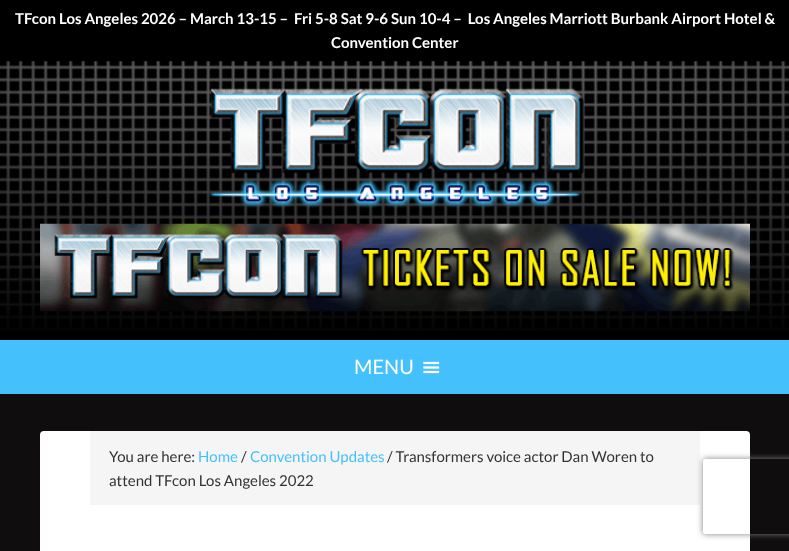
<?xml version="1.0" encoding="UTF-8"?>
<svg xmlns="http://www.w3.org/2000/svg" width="789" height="551">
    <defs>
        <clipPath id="clip1"><path d="M 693 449 H 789 V 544 H 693 Z M 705.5 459 H 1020.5 C 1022 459 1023 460 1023 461.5 V 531.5 C 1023 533 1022 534 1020.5 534 H 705.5 C 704 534 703 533 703 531.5 V 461.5 C 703 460 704 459 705.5 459 Z" clip-rule="evenodd"/></clipPath>
        <filter id="blur1" x="-50%" y="-200%" width="200%" height="500%"><feGaussianBlur stdDeviation="3"/></filter>
    </defs>
    <rect width="100%" height="100%" fill="#0F0D0D"/>
    <rect x="0" y="0" width="789" height="340" fill="#000000"/>
    <text x="15" y="24" font-family="Lato" font-size="15" font-weight="700" fill="#FFFFFF" xml:space="preserve">TFcon Los Angeles 2026 – March 13-15 –  Fri 5-8 Sat 9-6 Sun 10-4 –  Los Angeles Marriott Burbank Airport Hotel &amp;</text>
    <text x="331" y="48" font-family="Lato" font-size="15" font-weight="700" fill="#FFFFFF">Convention Center</text>
    <image x="0" y="61" width="789" height="270" href="img_01.png"/>
    <image x="209" y="88" width="375" height="120" href="img_02.png"/>
    <image x="40" y="223" width="710" height="89" href="img_03.png"/>
    <rect x="0" y="340" width="789" height="54" fill="#44C0FD"/>
    <text x="354" y="374" font-family="Lato" font-size="20" fill="#FFFFFF">MENU</text>
    <image x="423" y="361" width="17" height="13" href="img_04.png"/>
    <rect x="40" y="431" width="710" height="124" rx="4" fill="#FFFFFF"/>
    <rect x="90" y="431" width="610" height="74" fill="#F5F5F5"/>
    <text x="109" y="462" font-family="Lato" font-size="15" fill="#333333">You are here:</text>
    <text x="198" y="462" font-family="Lato" font-size="15" fill="#44C0FD">Home</text>
    <text x="241" y="462" font-family="Lato" font-size="15" fill="#333333">/</text>
    <text x="250" y="462" font-family="Lato" font-size="15" fill="#44C0FD">Convention Updates</text>
    <text x="387" y="462" font-family="Lato" font-size="15" fill="#333333">/ Transformers voice actor Dan Woren to</text>
    <text x="109" y="486" font-family="Lato" font-size="15" fill="#333333">attend TFcon Los Angeles 2022</text>
    <g clip-path="url(#clip1)">
        <rect x="703" y="459" width="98" height="75" rx="2.5" fill="#808080" filter="url(#blur1)"/>
    </g>
</svg>
